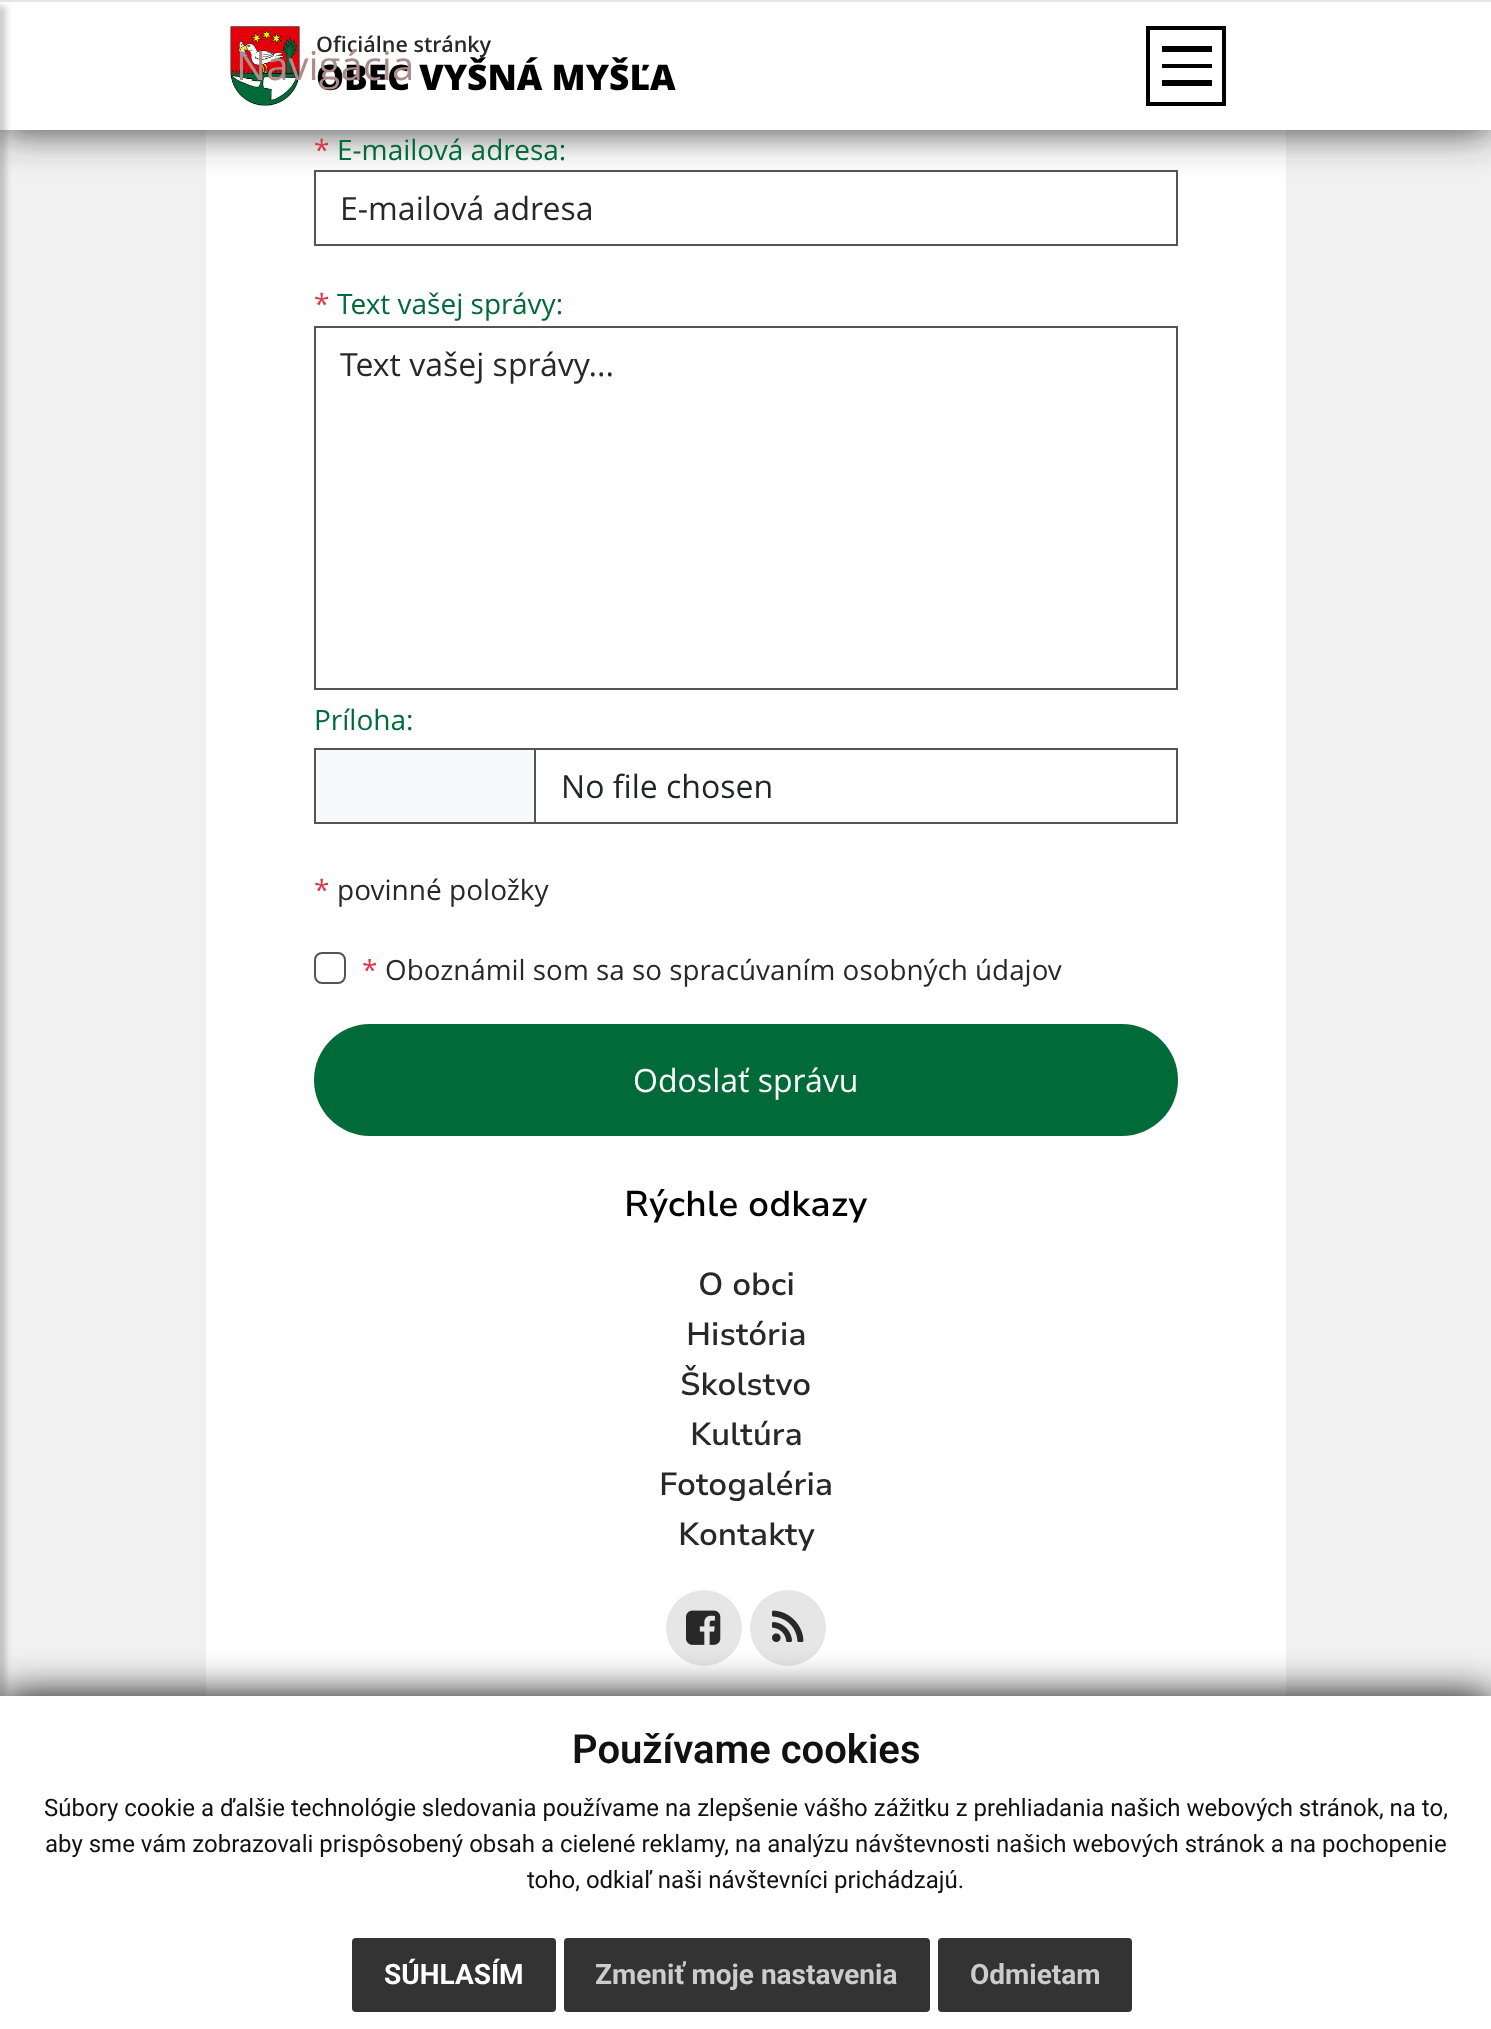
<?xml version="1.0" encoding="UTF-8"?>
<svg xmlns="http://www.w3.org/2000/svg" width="1491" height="2029">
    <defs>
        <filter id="blur1" x="-50%" y="-200%" width="200%" height="500%"><feGaussianBlur stdDeviation="20"/></filter>
        <filter id="blur2" x="-50%" y="-200%" width="200%" height="500%"><feGaussianBlur stdDeviation="3"/></filter>
    </defs>
    <rect width="100%" height="100%" fill="#F1F1F1"/>
    <rect x="206" y="130" width="1080" height="1566" fill="#FFFFFF"/>
    <rect x="315" y="171" width="862" height="74" fill="none" stroke="#545454" stroke-width="2"/>
    <rect x="0" y="0" width="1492" height="130" fill="#333333" filter="url(#blur1)"/>
    <rect x="0" y="2" width="1491" height="128" fill="#FFFFFF"/>
    <rect x="0" y="0" width="1491" height="2" fill="#E6E6E6"/>
    <rect x="-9" y="6" width="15" height="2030" fill="#000000" fill-opacity="0.2" filter="url(#blur2)"/>
    <image x="230" y="26" width="70" height="80" href="img_01.png"/>
    <text x="316" y="52" font-family="Open Sans" font-size="21.5" font-weight="600" fill="#282828">Oficiálne stránky</text>
    <text x="316" y="90" font-family="Open Sans" font-size="35.25" font-weight="800" fill="#000000">OBEC VYŠNÁ MYŠĽA</text>
    <text x="236" y="80" font-family="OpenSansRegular" font-size="40" fill="#AA8C8A">Navigácia</text>
    <rect x="1148" y="28" width="76" height="76" fill="none" stroke="#000000" stroke-width="4"/>
    <rect x="1162" y="46" width="50" height="6" fill="#000000"/>
    <rect x="1162" y="64" width="50" height="4" fill="#000000"/>
    <rect x="1162" y="80" width="50" height="6" fill="#000000"/>
    <text x="314" y="160" font-family="OpenSansRegular" font-size="28" fill="#DC3545">*</text>
    <text x="337" y="160" font-family="OpenSansRegular" font-size="28" fill="#006A39">E-mailová adresa:</text>
    <text x="340" y="220" font-family="OpenSansRegular" font-size="32" fill="#282828">E-mailová adresa</text>
    <text x="314" y="314" font-family="OpenSansRegular" font-size="28" fill="#DC3545">*</text>
    <text x="337" y="314" font-family="OpenSansRegular" font-size="28" fill="#006A39">Text vašej správy:</text>
    <rect x="315" y="327" width="862" height="362" fill="none" stroke="#545454" stroke-width="2"/>
    <text x="340" y="376" font-family="OpenSansRegular" font-size="32" fill="#282828">Text vašej správy...</text>
    <text x="314" y="730" font-family="OpenSansRegular" font-size="28" fill="#006A39">Príloha:</text>
    <rect x="315" y="749" width="862" height="74" fill="none" stroke="#545454" stroke-width="2"/>
    <rect x="316" y="750" width="218" height="72" fill="#F8F9FA"/>
    <rect x="534" y="750" width="2" height="72" fill="#545454"/>
    <text x="561" y="798" font-family="OpenSansRegular" font-size="32" fill="#212529">No file chosen</text>
    <text x="314" y="900" font-family="OpenSansRegular" font-size="28" fill="#DC3545">*</text>
    <text x="337" y="900" font-family="OpenSansRegular" font-size="28" fill="#282828">povinné položky</text>
    <rect x="315" y="953" width="30" height="30" rx="7" fill="none" stroke="#545454" stroke-width="2"/>
    <text x="362" y="980" font-family="OpenSansRegular" font-size="27.8" fill="#DC3545">*</text>
    <text x="385" y="980" font-family="OpenSansRegular" font-size="27.8" fill="#282828">Oboznámil som sa so spracúvaním osobných údajov</text>
    <rect x="314" y="1024" width="864" height="112" rx="56" fill="#006A39"/>
    <text x="633" y="1092" font-family="OpenSansRegular" font-size="32" fill="#FFFFFF">Odoslať správu</text>
    <text x="624" y="1216" font-family="Nunito Sans" font-size="35.75" font-weight="600" fill="#000000">Rýchle odkazy</text>
    <text x="698" y="1295" font-family="Nunito Sans" font-size="32" font-weight="600" fill="#282828">O obci</text>
    <text x="686" y="1345" font-family="Nunito Sans" font-size="32" font-weight="600" fill="#282828">História</text>
    <text x="680" y="1395" font-family="Nunito Sans" font-size="32" font-weight="600" fill="#282828">Školstvo</text>
    <text x="690" y="1445" font-family="Nunito Sans" font-size="32" font-weight="600" fill="#282828">Kultúra</text>
    <text x="659" y="1495" font-family="Nunito Sans" font-size="32" font-weight="600" fill="#282828">Fotogaléria</text>
    <text x="678" y="1545" font-family="Nunito Sans" font-size="32" font-weight="600" fill="#282828">Kontakty</text>
    <circle cx="704" cy="1628" r="38" fill="#E6E6E6"/>
    <image x="686" y="1610" width="35" height="35" href="img_02.png"/>
    <circle cx="788" cy="1628" r="38" fill="#E6E6E6"/>
    <image x="772" y="1610" width="32" height="32" href="img_03.png"/>
    <rect x="0" y="1696" width="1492" height="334" fill="#111111" filter="url(#blur1)"/>
    <rect x="0" y="1696" width="1491" height="333" fill="#FFFFFF"/>
    <text x="572" y="1763" font-family="Roboto" font-size="40" font-weight="600" fill="#111111">Používame cookies</text>
    <text x="44" y="1816" font-family="Roboto" font-size="24" fill="#111111">Súbory cookie a ďalšie technológie sledovania používame na zlepšenie vášho zážitku z prehliadania našich webových stránok, na to,</text>
    <text x="45" y="1852" font-family="Roboto" font-size="24" fill="#111111">aby sme vám zobrazovali prispôsobený obsah a cielené reklamy, na analýzu návštevnosti našich webových stránok a na pochopenie</text>
    <text x="527" y="1888" font-family="Roboto" font-size="24" fill="#111111">toho, odkiaľ naši návštevníci prichádzajú.</text>
    <rect x="352" y="1938" width="204" height="74" rx="4" fill="#333333"/>
    <text x="384" y="1984" font-family="Roboto" font-size="28" font-weight="700" fill="#FFFFFF">SÚHLASÍM</text>
    <rect x="564" y="1938" width="366" height="74" rx="4" fill="#333333"/>
    <text x="595" y="1984" font-family="Roboto" font-size="28" font-weight="700" fill="#CCCCCC">Zmeniť moje nastavenia</text>
    <rect x="938" y="1938" width="194" height="74" rx="4" fill="#333333"/>
    <text x="970" y="1984" font-family="Roboto" font-size="28" font-weight="700" fill="#CCCCCC">Odmietam</text>
</svg>
